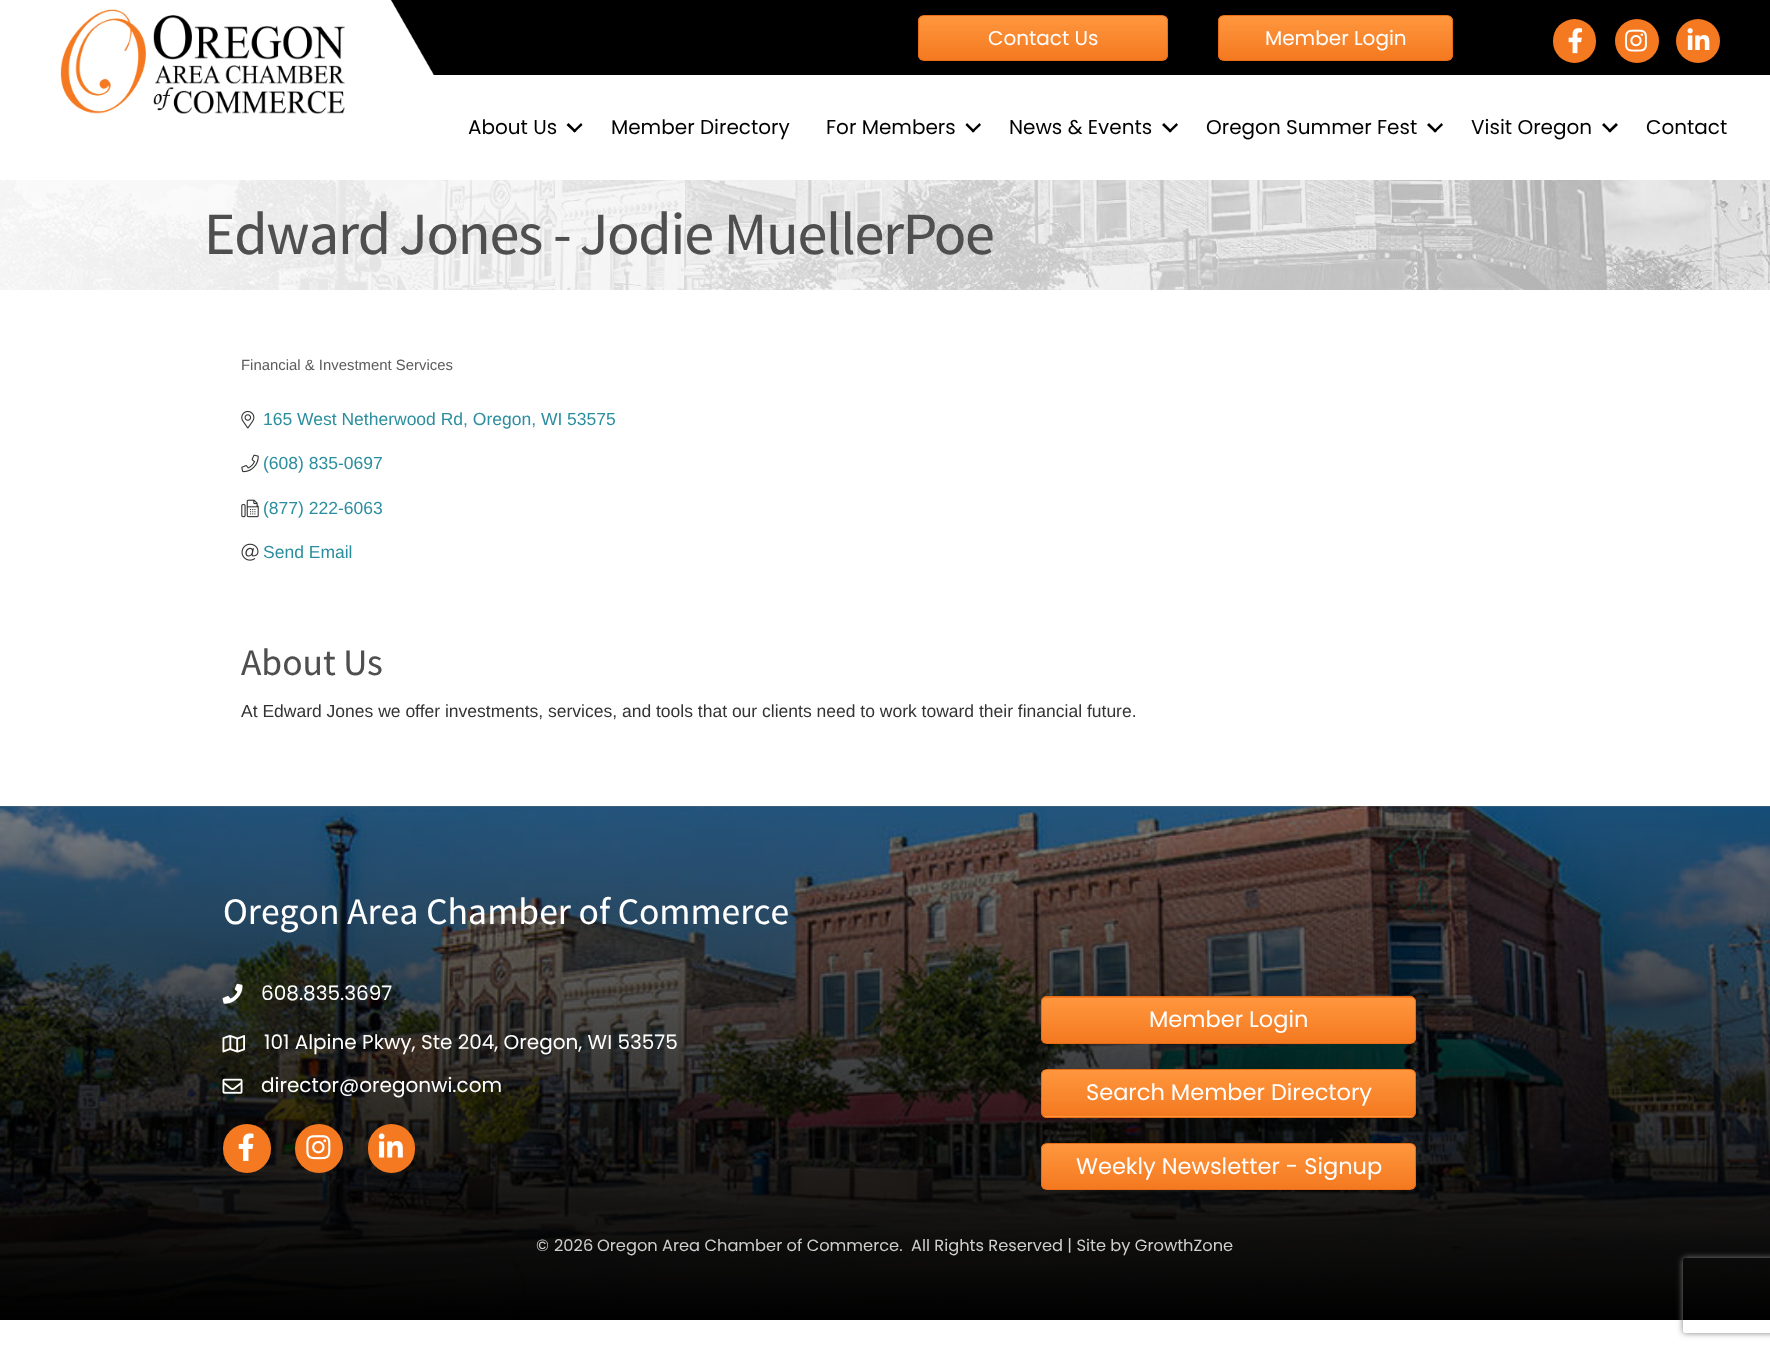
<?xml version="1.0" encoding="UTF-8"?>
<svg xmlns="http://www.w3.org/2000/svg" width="1770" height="1350">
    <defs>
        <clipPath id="clip1"><rect x="918" y="15" width="250" height="46" rx="6"/></clipPath>
        <linearGradient id="g1" gradientUnits="userSpaceOnUse" x1="1043" y1="16" x2="1043" y2="60"><stop offset="0" stop-color="#FF973E"/><stop offset="1" stop-color="#F47920"/></linearGradient>
        <clipPath id="clip2"><rect x="1218" y="15" width="235" height="46" rx="6"/></clipPath>
        <linearGradient id="g2" gradientUnits="userSpaceOnUse" x1="1335" y1="16" x2="1335" y2="60"><stop offset="0" stop-color="#FF973E"/><stop offset="1" stop-color="#F47920"/></linearGradient>
        <linearGradient id="g3" gradientUnits="userSpaceOnUse" x1="885" y1="806" x2="885" y2="1320"><stop offset="0" stop-color="#000000" stop-opacity="0.47"/><stop offset="1" stop-color="#000000"/></linearGradient>
        <clipPath id="clip3"><rect x="1041" y="996" width="375" height="48" rx="6"/></clipPath>
        <linearGradient id="g4" gradientUnits="userSpaceOnUse" x1="1229" y1="953" x2="1229" y2="998"><stop offset="0" stop-color="#FF973E"/><stop offset="1" stop-color="#F47920"/></linearGradient>
        <linearGradient id="g5" gradientUnits="userSpaceOnUse" x1="1229" y1="998" x2="1229" y2="1043"><stop offset="0" stop-color="#FF973E"/><stop offset="1" stop-color="#F47920"/></linearGradient>
        <clipPath id="clip4"><rect x="1041" y="1069" width="375" height="49" rx="6"/></clipPath>
        <linearGradient id="g6" gradientUnits="userSpaceOnUse" x1="1229" y1="1070" x2="1229" y2="1116"><stop offset="0" stop-color="#FF973E"/><stop offset="1" stop-color="#F47920"/></linearGradient>
        <linearGradient id="g7" gradientUnits="userSpaceOnUse" x1="1229" y1="1116" x2="1229" y2="1163"><stop offset="0" stop-color="#FF973E"/><stop offset="1" stop-color="#F47920"/></linearGradient>
        <clipPath id="clip5"><rect x="1041" y="1143" width="375" height="47" rx="6"/></clipPath>
        <linearGradient id="g8" gradientUnits="userSpaceOnUse" x1="1229" y1="1144" x2="1229" y2="1189"><stop offset="0" stop-color="#FF973E"/><stop offset="1" stop-color="#F47920"/></linearGradient>
        <clipPath id="clip6"><path d="M 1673 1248 H 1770 V 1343 H 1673 Z M 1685.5 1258 H 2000.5 C 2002 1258 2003 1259 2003 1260.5 V 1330.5 C 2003 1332 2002 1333 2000.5 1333 H 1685.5 C 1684 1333 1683 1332 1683 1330.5 V 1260.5 C 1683 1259 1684 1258 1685.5 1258 Z" clip-rule="evenodd"/></clipPath>
        <filter id="blur1" x="-50%" y="-200%" width="200%" height="500%"><feGaussianBlur stdDeviation="3"/></filter>
    </defs>
    <rect width="100%" height="100%" fill="#FFFFFF"/>
    <image x="60" y="9" width="285" height="105" href="img_01.png"/>
    <image x="390" y="0" width="291" height="75" href="img_02.png"/>
    <rect x="681" y="0" width="1089" height="75" fill="#000000"/>
    <g clip-path="url(#clip1)">
        <rect x="918" y="16" width="250" height="44" fill="url(#g1)"/>
    </g>
    <rect x="918.5" y="15.5" width="249" height="45" rx="5.5" fill="none" stroke="#E86D14"/>
    <text x="988" y="45" font-family="Poppins" font-size="20" fill="#FFFFFF">Contact Us</text>
    <g clip-path="url(#clip2)">
        <rect x="1218" y="16" width="235" height="44" fill="url(#g2)"/>
    </g>
    <rect x="1218.5" y="15.5" width="234" height="45" rx="5.5" fill="none" stroke="#E86D14"/>
    <text x="1265" y="45" font-family="Poppins" font-size="20" fill="#FFFFFF">Member Login</text>
    <rect x="1553" y="19" width="43" height="44" rx="21.5" fill="#F47920"/>
    <image x="1568" y="28" width="14" height="26" href="img_03.png"/>
    <circle cx="1637" cy="41" r="22" fill="#F47920"/>
    <image x="1625" y="29" width="22" height="23" href="img_04.png"/>
    <circle cx="1698" cy="41" r="22" fill="#F47920"/>
    <image x="1687" y="28" width="23" height="22" href="img_05.png"/>
    <text x="468" y="134" font-family="Poppins" font-size="20" fill="#000000">About Us</text>
    <path d="M 581 123 L 582.5 125 L 574.5 132.5 L 573 131 Z" fill="#000000"/>
    <path d="M 568.5 123 L 576.5 131 L 574.5 132.5 L 566.5 125 Z" fill="#000000"/>
    <text x="611" y="134" font-family="Poppins" font-size="20" fill="#000000">Member Directory</text>
    <text x="826" y="134" font-family="Poppins" font-size="20" fill="#000000">For Members</text>
    <path d="M 979.5 123 L 981 125 L 973 132.5 L 971.5 131 Z" fill="#000000"/>
    <path d="M 967 123 L 975 131 L 973 132.5 L 965.5 125 Z" fill="#000000"/>
    <text x="1009" y="134" font-family="Poppins" font-size="20" fill="#000000">News &amp; Events</text>
    <path d="M 1176.5 123 L 1178 125 L 1170 132.5 L 1168.5 131 Z" fill="#000000"/>
    <path d="M 1164 123 L 1172 131 L 1170 132.5 L 1162 125 Z" fill="#000000"/>
    <text x="1206" y="134" font-family="Poppins" font-size="20" fill="#000000">Oregon Summer Fest</text>
    <path d="M 1441.5 123 L 1443 125 L 1435 132.5 L 1433.5 131 Z" fill="#000000"/>
    <path d="M 1429 123 L 1437 131 L 1435 132.5 L 1427 125 Z" fill="#000000"/>
    <text x="1471" y="134" font-family="Poppins" font-size="20" fill="#000000">Visit Oregon</text>
    <path d="M 1616 123 L 1618 125 L 1610 132.5 L 1608 131 Z" fill="#000000"/>
    <path d="M 1604 123 L 1611.5 131 L 1610 132.5 L 1602 125 Z" fill="#000000"/>
    <text x="1646" y="134" font-family="Poppins" font-size="20" fill="#000000">Contact</text>
    <image x="0" y="180" width="1770" height="110" href="img_06.png"/>
    <text x="204" y="254" font-family="Varta" font-size="60" font-weight="300" letter-spacing="-1.25" fill="#4F4F4F">Edward Jones - Jodie MuellerPoe</text>
    <text x="241" y="370" font-family="Liberation Sans" font-size="14.9" fill="#5C5C5C">Financial &amp; Investment Services</text>
    <image x="241" y="410" width="14" height="19" href="img_07.png"/>
    <text x="263" y="425" font-family="Liberation Sans" font-size="17.5" fill="#2B8E9E">165 West Netherwood Rd, Oregon, WI 53575</text>
    <image x="241" y="454" width="18" height="19" href="img_08.png"/>
    <text x="263" y="469" font-family="Liberation Sans" font-size="17.5" fill="#2B8E9E">(608) 835-0697</text>
    <image x="241" y="499" width="18" height="19" href="img_09.png"/>
    <text x="263" y="514" font-family="Liberation Sans" font-size="17.5" fill="#2B8E9E">(877) 222-6063</text>
    <image x="241" y="543" width="18" height="18" href="img_10.png"/>
    <text x="263" y="558" font-family="Liberation Sans" font-size="17.5" fill="#2B8E9E">Send Email</text>
    <text x="241" y="675" font-family="Varta" font-size="37.5" font-weight="300" fill="#4F4F4F">About Us</text>
    <text x="241" y="717" font-family="Liberation Sans" font-size="17.5" fill="#333333">At Edward Jones we offer investments, services, and tools that our clients need to work toward their financial future.</text>
    <image x="0" y="806" width="1770" height="508" href="img_11.png"/>
    <rect x="0" y="806" width="1770" height="514" fill="url(#g3)"/>
    <text x="223" y="924" font-family="Varta" font-size="37.5" font-weight="300" fill="#FFFFFF">Oregon Area Chamber of Commerce</text>
    <image x="222" y="983" width="21" height="21" href="img_12.png"/>
    <text x="261" y="1000" font-family="Poppins" font-size="20" fill="#FFFFFF">608.835.3697</text>
    <image x="222" y="1035" width="23" height="18" href="img_13.png"/>
    <text x="264" y="1049" font-family="Poppins" font-size="20" fill="#FFFFFF">101 Alpine Pkwy, Ste 204, Oregon, WI 53575</text>
    <image x="222" y="1078" width="21" height="16" href="img_14.png"/>
    <text x="261" y="1092" font-family="Poppins" font-size="20" fill="#FFFFFF">director@oregonwi.com</text>
    <rect x="223" y="1124" width="48" height="49" rx="24" fill="#F47920"/>
    <image x="238" y="1133" width="16" height="28" href="img_15.png"/>
    <rect x="295" y="1124" width="48" height="49" rx="24" fill="#F47920"/>
    <image x="306" y="1135" width="25" height="25" href="img_16.png"/>
    <rect x="368" y="1124" width="47" height="49" rx="23.5" fill="#F47920"/>
    <image x="378" y="1133" width="25" height="25" href="img_17.png"/>
    <g clip-path="url(#clip3)">
        <rect x="1041" y="996" width="375" height="2" fill="url(#g4)"/>
        <rect x="1041" y="998" width="375" height="45" fill="url(#g5)"/>
    </g>
    <rect x="1041.5" y="996.5" width="374" height="47" rx="5.5" fill="none" stroke="#E86D14"/>
    <text x="1149" y="1027" font-family="Poppins" font-size="22.5" fill="#FFFFFF">Member Login</text>
    <g clip-path="url(#clip4)">
        <rect x="1041" y="1070" width="375" height="46" fill="url(#g6)"/>
        <rect x="1041" y="1116" width="375" height="2" fill="url(#g7)"/>
    </g>
    <rect x="1041.5" y="1069.5" width="374" height="48" rx="5.5" fill="none" stroke="#E86D14"/>
    <text x="1086" y="1100" font-family="Poppins" font-size="22.5" fill="#FFFFFF">Search Member Directory</text>
    <g clip-path="url(#clip5)">
        <rect x="1041" y="1144" width="375" height="45" fill="url(#g8)"/>
    </g>
    <rect x="1041.5" y="1143.5" width="374" height="46" rx="5.5" fill="none" stroke="#E86D14"/>
    <text x="1076" y="1174" font-family="Poppins" font-size="22.5" fill="#FFFFFF">Weekly Newsletter - Signup</text>
    <text x="536" y="1251" font-family="Poppins" font-size="16.25" fill="#CFCFCE">©</text>
    <text x="554" y="1251" font-family="Poppins" font-size="16.25" fill="#CFCFCE">2026</text>
    <text x="597" y="1251" font-family="Poppins" font-size="16.25" fill="#CFCFCE">Oregon Area Chamber of Commerce.</text>
    <text x="911" y="1251" font-family="Poppins" font-size="16.25" fill="#CFCFCE">All Rights Reserved | Site by GrowthZone</text>
    <g clip-path="url(#clip6)">
        <rect x="1683" y="1258" width="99" height="75" rx="2.5" fill="#808080" filter="url(#blur1)"/>
    </g>
</svg>
